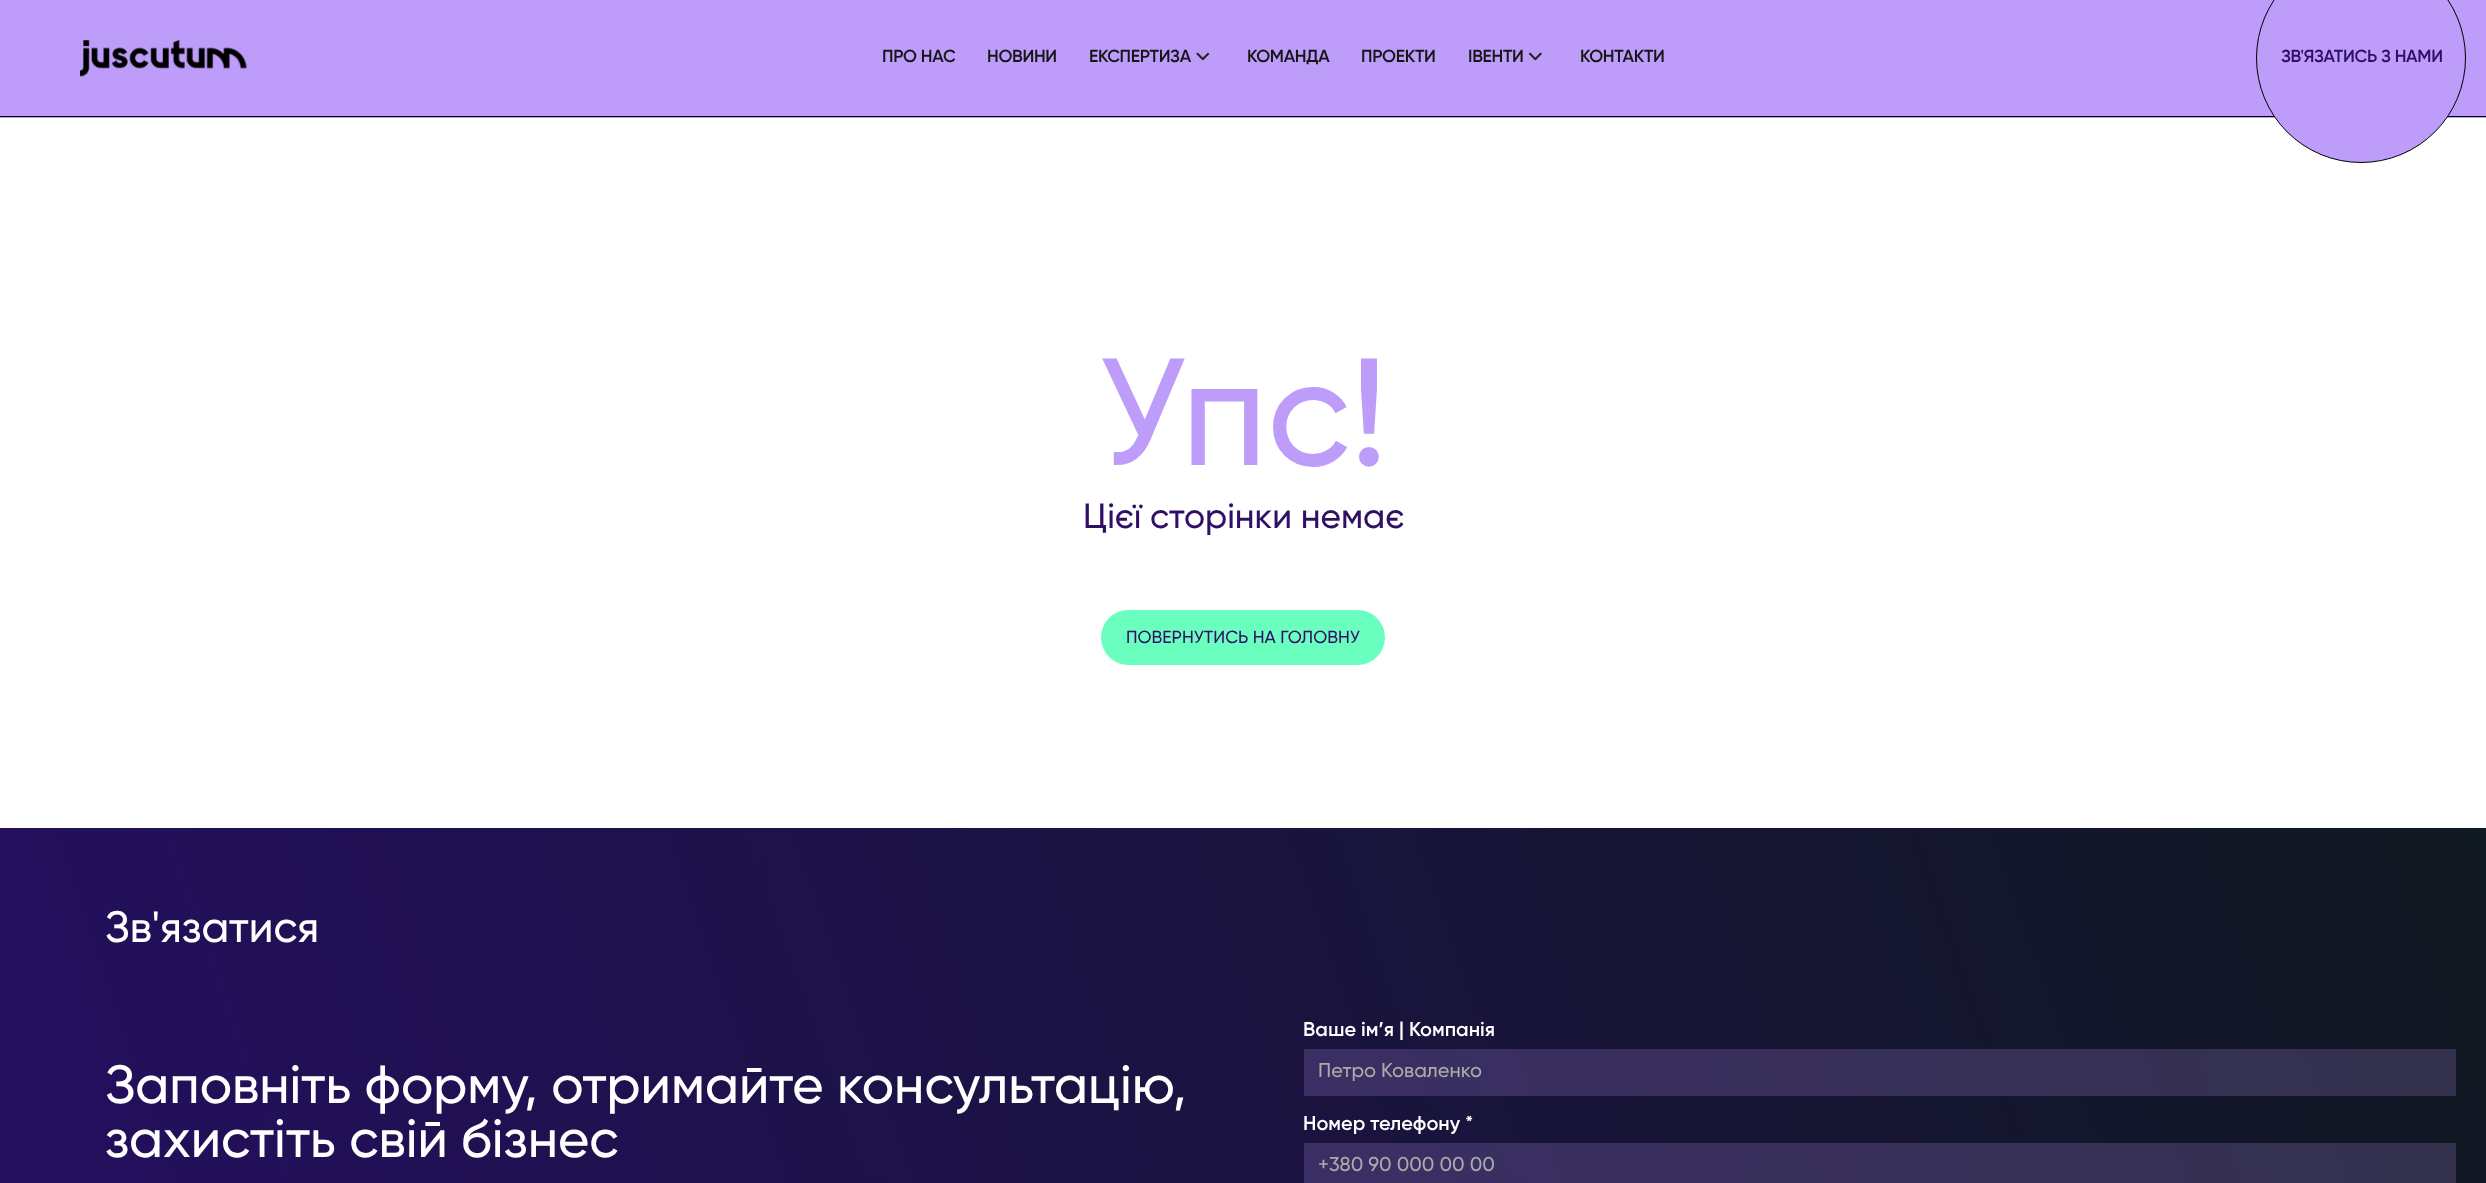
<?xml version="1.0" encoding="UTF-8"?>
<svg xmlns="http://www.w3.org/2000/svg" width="2486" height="1183">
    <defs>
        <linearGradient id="g1" gradientUnits="userSpaceOnUse" x1="13" y1="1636" x2="2473" y2="789"><stop offset="0" stop-color="#250E62"/><stop offset="1" stop-color="#101820"/></linearGradient>
        <linearGradient id="g2" gradientUnits="userSpaceOnUse" x1="13" y1="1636" x2="2473" y2="789"><stop offset="0" stop-color="#442A80"/><stop offset="1" stop-color="#33324C"/></linearGradient>
    </defs>
    <rect width="100%" height="100%" fill="#FFFFFF"/>
    <rect x="0" y="0" width="2486" height="118" fill="#BE9CFA"/>
    <rect x="0" y="116" width="2486" height="1" fill="#000000"/>
    <image x="80" y="40" width="167" height="37" href="img_01.png"/>
    <text x="882" y="62" font-family="Gilroy" font-size="17.5" font-weight="600" letter-spacing="-0.3" fill="#161616">ПРО НАС</text>
    <text x="987" y="62" font-family="Gilroy" font-size="17.5" font-weight="600" letter-spacing="-0.3" fill="#161616">НОВИНИ</text>
    <text x="1089" y="62" font-family="Gilroy" font-size="17.5" font-weight="600" letter-spacing="-0.3" fill="#161616">ЕКСПЕРТИЗА</text>
    <image x="1196" y="52" width="14" height="9" href="img_02.png"/>
    <text x="1247" y="62" font-family="Gilroy" font-size="17.5" font-weight="600" letter-spacing="-0.3" fill="#161616">КОМАНДА</text>
    <text x="1361" y="62" font-family="Gilroy" font-size="17.5" font-weight="600" letter-spacing="-0.3" fill="#161616">ПРОЕКТИ</text>
    <text x="1468" y="62" font-family="Gilroy" font-size="17.5" font-weight="600" letter-spacing="-0.3" fill="#161616">ІВЕНТИ</text>
    <image x="1528" y="52" width="14" height="9" href="img_03.png"/>
    <text x="1580" y="62" font-family="Gilroy" font-size="17.5" font-weight="600" letter-spacing="-0.3" fill="#161616">КОНТАКТИ</text>
    <circle cx="2361" cy="58" r="104.5" fill="#BE9CFA" stroke="#000000"/>
    <text x="2281" y="62" font-family="Gilroy" font-size="17.5" font-weight="600" letter-spacing="-0.3" fill="#2F1065">ЗВ'ЯЗАТИСЬ З НАМИ</text>
    <text x="1098" y="465" font-family="Gilroy" font-size="152" font-weight="500" fill="#BE9CFA">Упс!</text>
    <text x="1083" y="528" font-family="Gilroy" font-size="35" font-weight="500" fill="#2F1065">Цієї сторінки немає</text>
    <rect x="1101" y="610" width="284" height="55" rx="27.5" fill="#6BFFBF"/>
    <text x="1126" y="643" font-family="Gilroy" font-size="17.5" font-weight="500" fill="#2F1065">ПОВЕРНУТИСЬ НА ГОЛОВНУ</text>
    <rect x="0" y="828" width="2486" height="355" fill="url(#g1)"/>
    <rect x="1304" y="1143" width="1152" height="40" fill="url(#g2)"/>
    <rect x="1304" y="1049" width="1152" height="47" fill="url(#g2)"/>
    <text x="105" y="942" font-family="Gilroy" font-size="43.75" font-weight="500" fill="#FFFFFF">Зв'язатися</text>
    <text font-family="Gilroy" font-size="53.75" font-weight="500" fill="#FFFFFF">
        <tspan x="105" y="1103">Заповніть форму, отримайте консультацію,</tspan>
        <tspan x="105" y="1157">захистіть свій бізнес</tspan>
    </text>
    <text x="1303" y="1036" font-family="Gilroy" font-size="20" font-weight="600" fill="#FFFFFF">Ваше ім’я | Компанія</text>
    <text x="1318" y="1077" font-family="Gilroy" font-size="20" font-weight="500" fill="#ABABAB">Петро Коваленко</text>
    <text x="1303" y="1130" font-family="Gilroy" font-size="20" font-weight="600" fill="#FFFFFF">Номер телефону *</text>
    <text x="1318" y="1171" font-family="Gilroy" font-size="20" font-weight="500" fill="#ABABAB">+380 90 000 00 00</text>
</svg>
